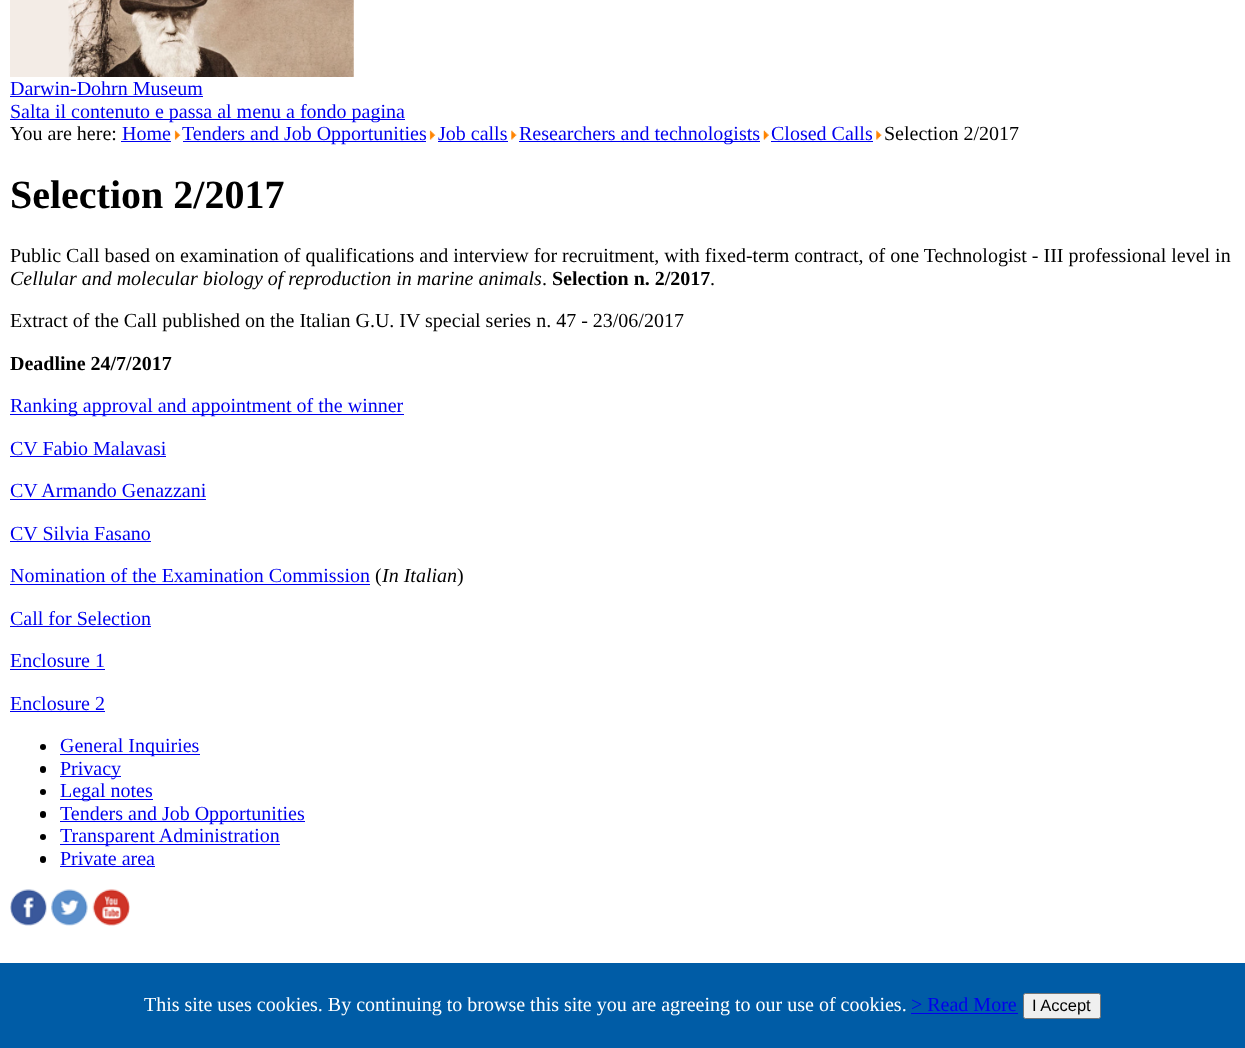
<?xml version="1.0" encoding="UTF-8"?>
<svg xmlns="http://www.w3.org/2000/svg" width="1245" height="1048">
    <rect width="100%" height="100%" fill="#FFFFFF"/>
    <image x="10" y="0" width="344" height="77" href="img_01.png"/>
    <text x="10" y="95" font-family="Liberation Serif" font-size="20" fill="#0000EE">Darwin-Dohrn Museum</text>
    <rect x="10" y="96" width="193" height="1" fill="#0000EE"/>
    <rect x="10" y="119" width="395" height="1" fill="#0000EE"/>
    <text x="10" y="118" font-family="Liberation Serif" font-size="20" fill="#0000EE">Salta il contenuto e passa al menu a fondo pagina</text>
    <text x="10" y="140" font-family="Liberation Serif" font-size="20" fill="#000000">You are here:</text>
    <text x="122" y="140" font-family="Liberation Serif" font-size="20" fill="#0000EE">Home</text>
    <rect x="121" y="141" width="50" height="1" fill="#0000EE"/>
    <image x="174" y="130" width="7" height="10" href="img_02.png"/>
    <rect x="183" y="141" width="243" height="1" fill="#0000EE"/>
    <text x="182" y="140" font-family="Liberation Serif" font-size="20" fill="#0000EE">Tenders and Job Opportunities</text>
    <image x="429" y="130" width="7" height="10" href="img_02.png"/>
    <text x="438" y="140" font-family="Liberation Serif" font-size="20" fill="#0000EE">Job calls</text>
    <rect x="438" y="141" width="70" height="1" fill="#0000EE"/>
    <image x="511" y="130" width="6" height="10" href="img_03.png"/>
    <rect x="519" y="141" width="241" height="1" fill="#0000EE"/>
    <text x="519" y="140" font-family="Liberation Serif" font-size="20" fill="#0000EE">Researchers and technologists</text>
    <image x="763" y="130" width="6" height="10" href="img_04.png"/>
    <text x="771" y="140" font-family="Liberation Serif" font-size="20" fill="#0000EE">Closed Calls</text>
    <rect x="771" y="141" width="102" height="1" fill="#0000EE"/>
    <image x="876" y="130" width="6" height="10" href="img_03.png"/>
    <text x="884" y="140" font-family="Liberation Serif" font-size="20" fill="#000000">Selection 2/2017</text>
    <text x="10" y="208" font-family="Liberation Serif" font-size="40" font-weight="700" fill="#000000">Selection 2/2017</text>
    <text x="10" y="262" font-family="Liberation Serif" font-size="20" fill="#000000">Public Call based on examination of qualifications and interview for recruitment, with fixed-term contract, of one Technologist - III professional level in</text>
    <text x="10" y="285" font-family="Liberation Serif" font-size="20" font-style="italic" fill="#000000">Cellular and molecular biology of reproduction in marine animals</text>
    <text x="542" y="285" font-family="Liberation Serif" font-size="20" fill="#000000">.</text>
    <text x="552" y="285" font-family="Liberation Serif" font-size="20" font-weight="700" fill="#000000">Selection n. 2/2017</text>
    <text x="710" y="285" font-family="Liberation Serif" font-size="20" fill="#000000">.</text>
    <text x="10" y="327" font-family="Liberation Serif" font-size="20" fill="#000000">Extract of the Call published on the Italian G.U. IV special series n. 47 - 23/06/2017</text>
    <text x="10" y="370" font-family="Liberation Serif" font-size="20" font-weight="700" fill="#000000">Deadline 24/7/2017</text>
    <rect x="10" y="414" width="394" height="1" fill="#0000EE"/>
    <text x="10" y="412" font-family="Liberation Serif" font-size="20" fill="#0000EE">Ranking approval and appointment of the winner</text>
    <text x="10" y="455" font-family="Liberation Serif" font-size="20" fill="#0000EE">CV Fabio Malavasi</text>
    <rect x="10" y="456" width="156" height="1" fill="#0000EE"/>
    <text x="10" y="497" font-family="Liberation Serif" font-size="20" fill="#0000EE">CV Armando Genazzani</text>
    <rect x="10" y="499" width="196" height="1" fill="#0000EE"/>
    <text x="10" y="540" font-family="Liberation Serif" font-size="20" fill="#0000EE">CV Silvia Fasano</text>
    <rect x="10" y="541" width="141" height="1" fill="#0000EE"/>
    <text x="10" y="582" font-family="Liberation Serif" font-size="20" fill="#0000EE">Nomination of the Examination Commission</text>
    <rect x="10" y="584" width="360" height="1" fill="#0000EE"/>
    <text x="375" y="582" font-family="Liberation Serif" font-size="20" fill="#000000">(</text>
    <text x="382" y="582" font-family="Liberation Serif" font-size="20" font-style="italic" fill="#000000">In Italian</text>
    <text x="457" y="582" font-family="Liberation Serif" font-size="20" fill="#000000">)</text>
    <text x="10" y="625" font-family="Liberation Serif" font-size="20" fill="#0000EE">Call for Selection</text>
    <rect x="10" y="626" width="141" height="1" fill="#0000EE"/>
    <text x="10" y="667" font-family="Liberation Serif" font-size="20" fill="#0000EE">Enclosure 1</text>
    <rect x="10" y="669" width="95" height="1" fill="#0000EE"/>
    <text x="10" y="710" font-family="Liberation Serif" font-size="20" fill="#0000EE">Enclosure 2</text>
    <rect x="10" y="711" width="95" height="1" fill="#0000EE"/>
    <circle cx="43" cy="747" r="3" fill="#000000"/>
    <rect x="60" y="754" width="140" height="1" fill="#0000EE"/>
    <text x="60" y="752" font-family="Liberation Serif" font-size="20" fill="#0000EE">General Inquiries</text>
    <rect x="40" y="766" width="6" height="7" rx="3" fill="#000000"/>
    <rect x="60" y="776" width="61" height="1" fill="#0000EE"/>
    <text x="60" y="775" font-family="Liberation Serif" font-size="20" fill="#0000EE">Privacy</text>
    <circle cx="43" cy="792" r="3" fill="#000000"/>
    <rect x="60" y="799" width="93" height="1" fill="#0000EE"/>
    <text x="60" y="797" font-family="Liberation Serif" font-size="20" fill="#0000EE">Legal notes</text>
    <rect x="40" y="811" width="6" height="7" rx="3" fill="#000000"/>
    <rect x="60" y="821" width="245" height="1" fill="#0000EE"/>
    <text x="60" y="820" font-family="Liberation Serif" font-size="20" fill="#0000EE">Tenders and Job Opportunities</text>
    <circle cx="43" cy="837" r="3" fill="#000000"/>
    <rect x="60" y="844" width="220" height="1" fill="#0000EE"/>
    <text x="60" y="842" font-family="Liberation Serif" font-size="20" fill="#0000EE">Transparent Administration</text>
    <rect x="40" y="856" width="6" height="7" rx="3" fill="#000000"/>
    <text x="60" y="865" font-family="Liberation Serif" font-size="20" fill="#0000EE">Private area</text>
    <rect x="60" y="866" width="95" height="1" fill="#0000EE"/>
    <image x="10" y="889" width="37" height="37" href="img_05.png"/>
    <image x="51" y="889" width="37" height="37" href="img_06.png"/>
    <image x="92" y="889" width="38" height="37" href="img_07.png"/>
    <rect x="0" y="963" width="1245" height="85" fill="#005CA6"/>
    <text x="144" y="1011" font-family="Liberation Serif" font-size="20" fill="#FFFFFF">This site uses cookies. By continuing to browse this site you are agreeing to our use of cookies.</text>
    <text x="911" y="1011" font-family="Liberation Serif" font-size="20" fill="#0000EE">&gt; Read More</text>
    <rect x="911" y="1013" width="107" height="1" fill="#0000EE"/>
    <rect x="1023.5" y="993.5" width="77" height="25" rx="2" fill="#EFEFEF" stroke="#767676"/>
    <text x="1032" y="1011" font-family="Liberation Sans" font-size="16.5" fill="#000000">I Accept</text>
</svg>
